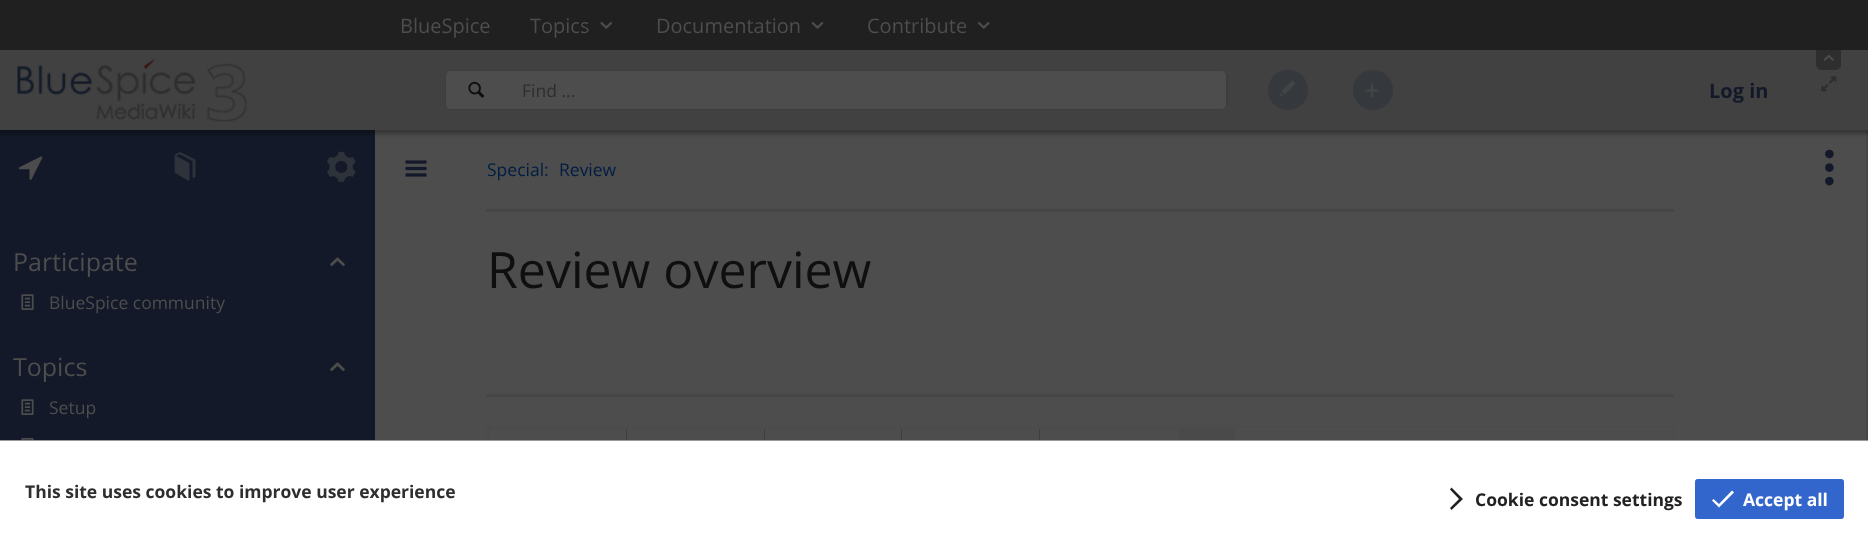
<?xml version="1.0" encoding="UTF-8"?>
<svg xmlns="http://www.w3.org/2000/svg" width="1868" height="552">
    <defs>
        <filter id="blur1" x="-50%" y="-200%" width="200%" height="500%"><feGaussianBlur stdDeviation="2"/></filter>
    </defs>
    <rect width="100%" height="100%" fill="#4D4D4D"/>
    <rect x="1866" y="130" width="2" height="310" fill="#464646"/>
    <rect x="0" y="130" width="375" height="310" fill="#131929"/>
    <rect x="-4" y="46" width="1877" height="88" fill="#000000" fill-opacity="0.3" filter="url(#blur1)"/>
    <rect x="0" y="0" width="1868" height="50" fill="#212020"/>
    <text x="400" y="33" font-family="Open Sans" font-size="20" fill="#4D4D4D">BlueSpice</text>
    <text x="530" y="33" font-family="Open Sans" font-size="20" fill="#4D4D4D">Topics</text>
    <image x="600" y="22" width="12" height="7" href="img_01.png"/>
    <text x="656" y="33" font-family="Open Sans" font-size="20" fill="#4D4D4D">Documentation</text>
    <image x="811" y="22" width="13" height="7" href="img_02.png"/>
    <text x="867" y="33" font-family="Open Sans" font-size="20" fill="#4D4D4D">Contribute</text>
    <image x="978" y="22" width="12" height="7" href="img_03.png"/>
    <rect x="0" y="50" width="1868" height="80" fill="#414141"/>
    <path d="M 1816 50 H 1841 V 64 C 1841 67.5 1838.5 70 1835 70 H 1822 C 1818.5 70 1816 67.5 1816 64 Z" fill="#2E2E2E"/>
    <image x="1823" y="54" width="11" height="7" href="img_04.png"/>
    <image x="17" y="58" width="230" height="64" href="img_05.png"/>
    <path d="M 451 70 H 506 V 110 H 451 C 447.5 110 445 107.5 445 104 V 76 C 445 72.5 447.5 70 451 70 Z" fill="#4D4D4D"/>
    <path d="M 451 70 H 506 V 110 H 451 C 448 110 445 107 445 104 V 76 C 445 73 448 70 451 70 Z M 451 71 H 506 V 109 H 451 C 448 109 446 107 446 104 V 76 C 446 73 448 71 451 71 Z" fill="#3D3D3D" fill-rule="evenodd"/>
    <image x="468" y="81" width="17" height="17" href="img_06.png"/>
    <path d="M 506 70 H 1222 C 1225.5 70 1228 72.5 1228 76 V 104 C 1228 107.5 1225.5 110 1222 110 H 506 Z" fill="#4D4D4D"/>
    <path d="M 506 70 H 1221 C 1225 70 1228 73 1228 76 V 104 C 1228 107 1225 110 1221 110 H 506 Z M 506 71 H 1221 C 1224 71 1226 73 1226 76 V 104 C 1226 107 1224 109 1221 109 H 506 Z" fill="#3D3D3D" fill-rule="evenodd"/>
    <text x="522" y="97" font-family="Open Sans" font-size="17.5" fill="#2E2E2E">Find ...</text>
    <circle cx="1288" cy="90" r="20" fill="#35383D"/>
    <image x="1279" y="80" width="17" height="16" href="img_07.png"/>
    <circle cx="1373" cy="90" r="20" fill="#35383D"/>
    <image x="1364" y="83" width="15" height="15" href="img_08.png"/>
    <text x="1709" y="98" font-family="Open Sans" font-size="20" font-weight="700" fill="#131929">Log in</text>
    <image x="1821" y="76" width="16" height="16" href="img_09.png"/>
    <text x="487" y="176" font-family="Open Sans" font-size="17.5" fill="#001D43">Special:</text>
    <text x="559" y="176" font-family="Open Sans" font-size="17.5" fill="#001D43">Review</text>
    <rect x="486" y="209" width="1188" height="3" fill="#464646"/>
    <text x="487" y="288" font-family="Open Sans" font-size="50" fill="#0F0F0F">Review overview</text>
    <rect x="486" y="394" width="1188" height="3" fill="#464646"/>
    <rect x="486.5" y="426.5" width="1187" height="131" rx="4.5" fill="none" stroke="#4A4A4A"/>
    <path d="M 492 428 H 1235 V 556 H 492 C 490 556 488 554 488 552 V 432 C 488 430 490 428 492 428 Z" fill="#3E3E3E"/>
    <path d="M 488 432 V 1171 L 489 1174 V 429 Z M 492 428 L 489 429 H 1234 V 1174 H 489 L 492 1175 H 1235 V 428 Z" fill="#4A4A4A" fill-rule="evenodd"/>
    <rect x="489" y="429" width="689" height="11" fill="#4D4D4D"/>
    <rect x="626" y="429" width="1" height="11" fill="#3E3E3E"/>
    <rect x="764" y="429" width="1" height="11" fill="#3E3E3E"/>
    <rect x="901" y="429" width="1" height="11" fill="#3E3E3E"/>
    <rect x="1039" y="429" width="1" height="11" fill="#3E3E3E"/>
    <rect x="1178" y="429" width="56" height="11" fill="#4A4A4A"/>
    <image x="1825" y="149" width="9" height="37" href="img_10.png"/>
    <image x="405" y="160" width="22" height="17" href="img_11.png"/>
    <image x="18" y="156" width="25" height="24" href="img_12.png"/>
    <image x="174" y="152" width="22" height="29" href="img_13.png"/>
    <image x="326" y="151" width="30" height="31" href="img_14.png"/>
    <text x="13" y="271" font-family="Open Sans" font-size="25" fill="#4D4D4D">Participate</text>
    <image x="330" y="257" width="15" height="9" href="img_15.png"/>
    <image x="21" y="294" width="13" height="16" href="img_16.png"/>
    <text x="49" y="309" font-family="Open Sans" font-size="17.5" fill="#4D4D4D">BlueSpice community</text>
    <text x="13" y="376" font-family="Open Sans" font-size="25" fill="#4D4D4D">Topics</text>
    <image x="330" y="362" width="15" height="9" href="img_15.png"/>
    <image x="21" y="399" width="13" height="16" href="img_16.png"/>
    <text x="49" y="414" font-family="Open Sans" font-size="17.5" fill="#4D4D4D">Setup</text>
    <image x="21" y="438" width="13" height="2" href="img_17.png"/>
    <rect x="0" y="441" width="1868" height="111" fill="#FFFFFF"/>
    <rect x="0" y="440" width="1868" height="1" fill="#999999"/>
    <text x="25" y="498" font-family="Open Sans" font-size="17.5" font-weight="700" fill="#2E2E2E">This site uses cookies to improve user experience</text>
    <path d="M 1451.5 487.5 L 1450 489.5 L 1459 499 L 1450 508 L 1451.5 510 L 1463 499 Z" fill="#212121"/>
    <text x="1475" y="506" font-family="Open Sans" font-size="17.5" font-weight="700" fill="#222222">Cookie consent settings</text>
    <rect x="1695.5" y="479.5" width="148" height="39" rx="2" fill="#3366CC" stroke="#3366CC"/>
    <path d="M 1719 504 L 1713.5 499 L 1712 500.5 L 1719 507.5 L 1734 492.5 L 1732 490.5 Z" fill="#FFFFFF"/>
    <text x="1743" y="506" font-family="Open Sans" font-size="17.5" font-weight="700" fill="#FFFFFF">Accept all</text>
</svg>
